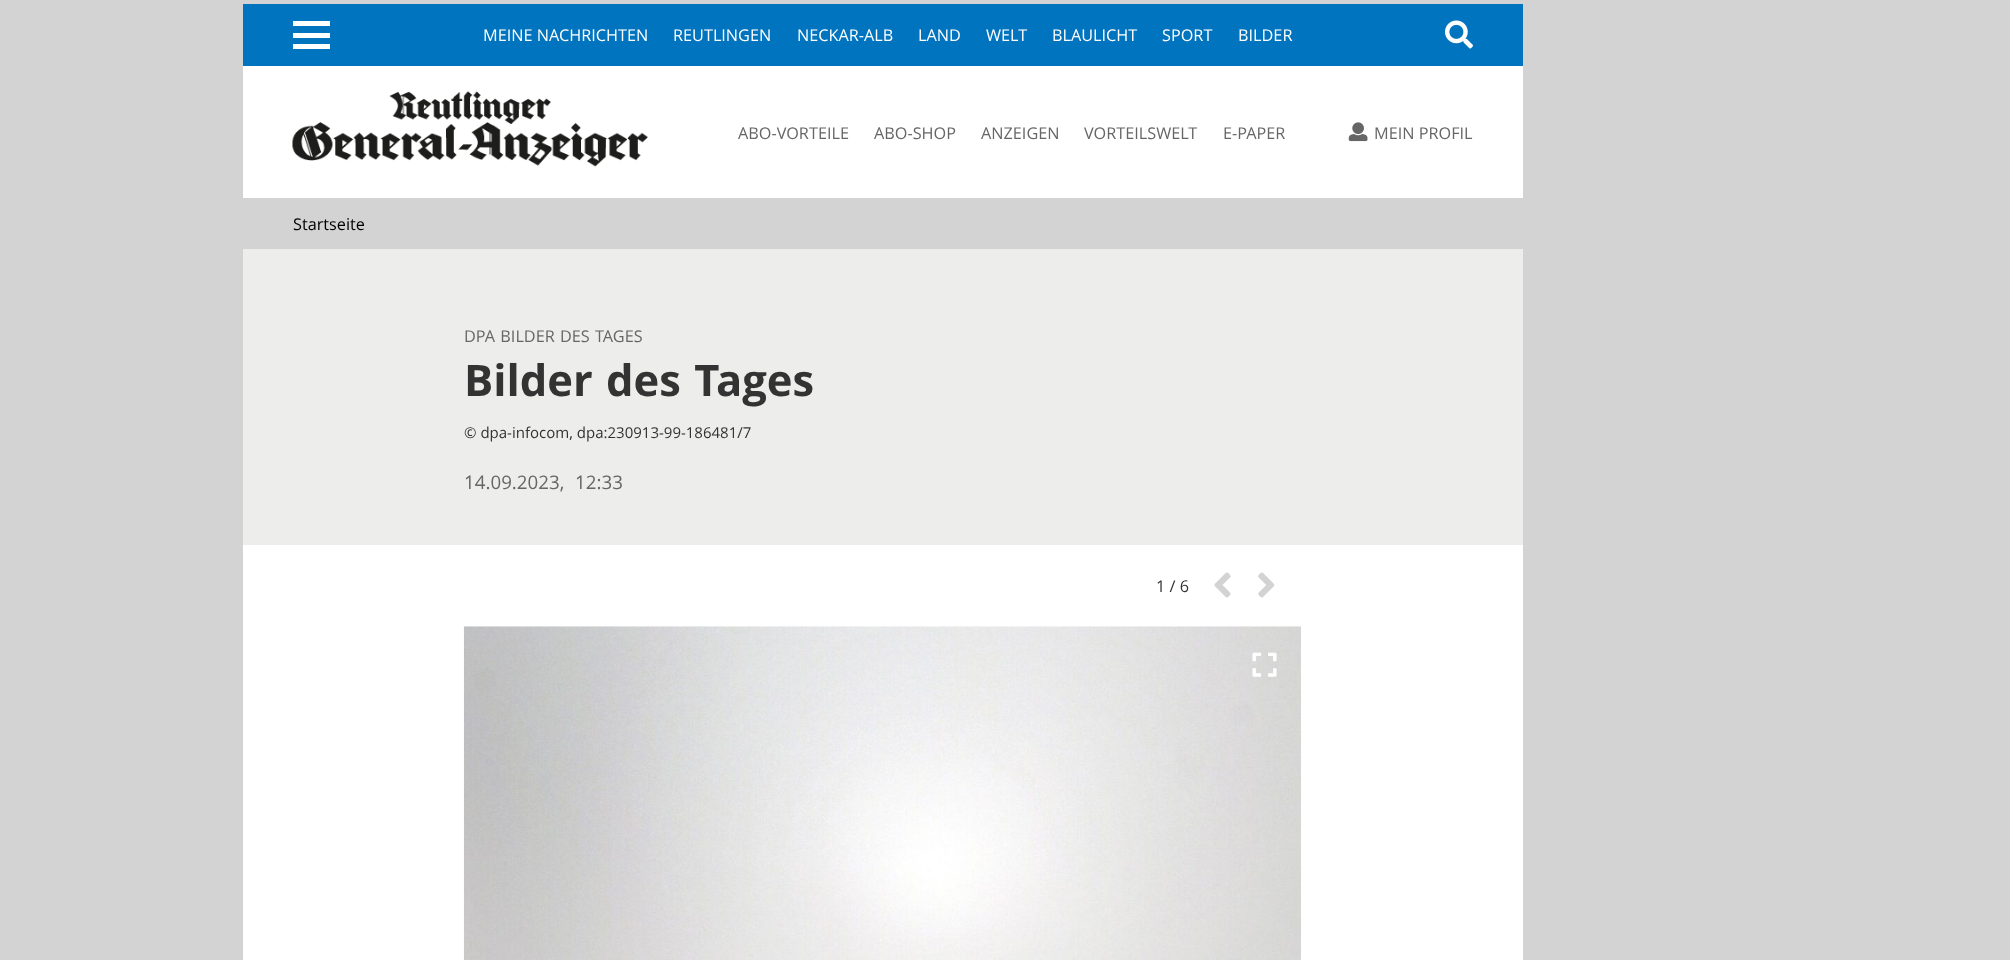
<?xml version="1.0" encoding="UTF-8"?>
<svg xmlns="http://www.w3.org/2000/svg" width="2010" height="960">
    <rect width="100%" height="100%" fill="#D3D3D4"/>
    <rect x="243" y="249" width="1280" height="296" fill="#EDEDEC"/>
    <rect x="243" y="66" width="1280" height="132" fill="#FFFFFF"/>
    <rect x="243" y="4" width="1280" height="62" fill="#0074BE"/>
    <rect x="293" y="33" width="37" height="5" fill="#FFFFFF"/>
    <rect x="293" y="21" width="37" height="5" fill="#FFFFFF"/>
    <rect x="293" y="44" width="37" height="5" fill="#FFFFFF"/>
    <text x="483" y="41" font-family="Open Sans" font-size="16.25" fill="#FFFFFF">MEINE NACHRICHTEN</text>
    <text x="673" y="41" font-family="Open Sans" font-size="16.25" fill="#FFFFFF">REUTLINGEN</text>
    <text x="797" y="41" font-family="Open Sans" font-size="16.25" fill="#FFFFFF">NECKAR-ALB</text>
    <text x="918" y="41" font-family="Open Sans" font-size="16.25" fill="#FFFFFF">LAND</text>
    <text x="986" y="41" font-family="Open Sans" font-size="16.25" fill="#FFFFFF">WELT</text>
    <text x="1052" y="41" font-family="Open Sans" font-size="16.25" fill="#FFFFFF">BLAULICHT</text>
    <text x="1162" y="41" font-family="Open Sans" font-size="16.25" fill="#FFFFFF">SPORT</text>
    <text x="1238" y="41" font-family="Open Sans" font-size="16.25" fill="#FFFFFF">BILDER</text>
    <image x="1445" y="20" width="28" height="29" href="img_01.png"/>
    <image x="292" y="91" width="356" height="76" href="img_02.png"/>
    <text x="738" y="139" font-family="Open Sans" font-size="16.25" fill="#666666">ABO-VORTEILE</text>
    <text x="874" y="139" font-family="Open Sans" font-size="16.25" fill="#666666">ABO-SHOP</text>
    <text x="981" y="139" font-family="Open Sans" font-size="16.25" fill="#666666">ANZEIGEN</text>
    <text x="1084" y="139" font-family="Open Sans" font-size="16.25" fill="#666666">VORTEILSWELT</text>
    <text x="1223" y="139" font-family="Open Sans" font-size="16.25" fill="#666666">E-PAPER</text>
    <image x="1348" y="122" width="20" height="20" href="img_03.png"/>
    <text x="1374" y="139" font-family="Open Sans" font-size="16.25" fill="#666666">MEIN PROFIL</text>
    <text x="293" y="230" font-family="Open Sans" font-size="16.25" fill="#000000">Startseite</text>
    <text x="464" y="342" word-spacing="1" font-family="Open Sans" font-size="16.25" fill="#666666">DPA BILDER DES TAGES</text>
    <text x="464" y="396" word-spacing="2" font-family="Open Sans" font-size="43.5" font-weight="700" fill="#333333">Bilder des Tages</text>
    <text x="464" y="438" font-family="Open Sans" font-size="15" fill="#333333">© dpa-infocom, dpa:230913-99-186481/7</text>
    <text x="464" y="489" font-family="Open Sans" font-size="18.75" fill="#666666">14.09.2023,</text>
    <text x="575" y="489" font-family="Open Sans" font-size="18.75" fill="#666666">12:33</text>
    <rect x="243" y="545" width="1280" height="415" fill="#FFFFFF"/>
    <text x="1156" y="592" font-family="Open Sans" font-size="16.25" fill="#333333">1 / 6</text>
    <image x="1214" y="572" width="17" height="26" href="img_04.png"/>
    <image x="1258" y="572" width="17" height="26" href="img_05.png"/>
    <image x="463" y="626" width="838" height="334" href="img_06.png"/>
    <image x="1252" y="652" width="25" height="25" href="img_07.png"/>
</svg>
